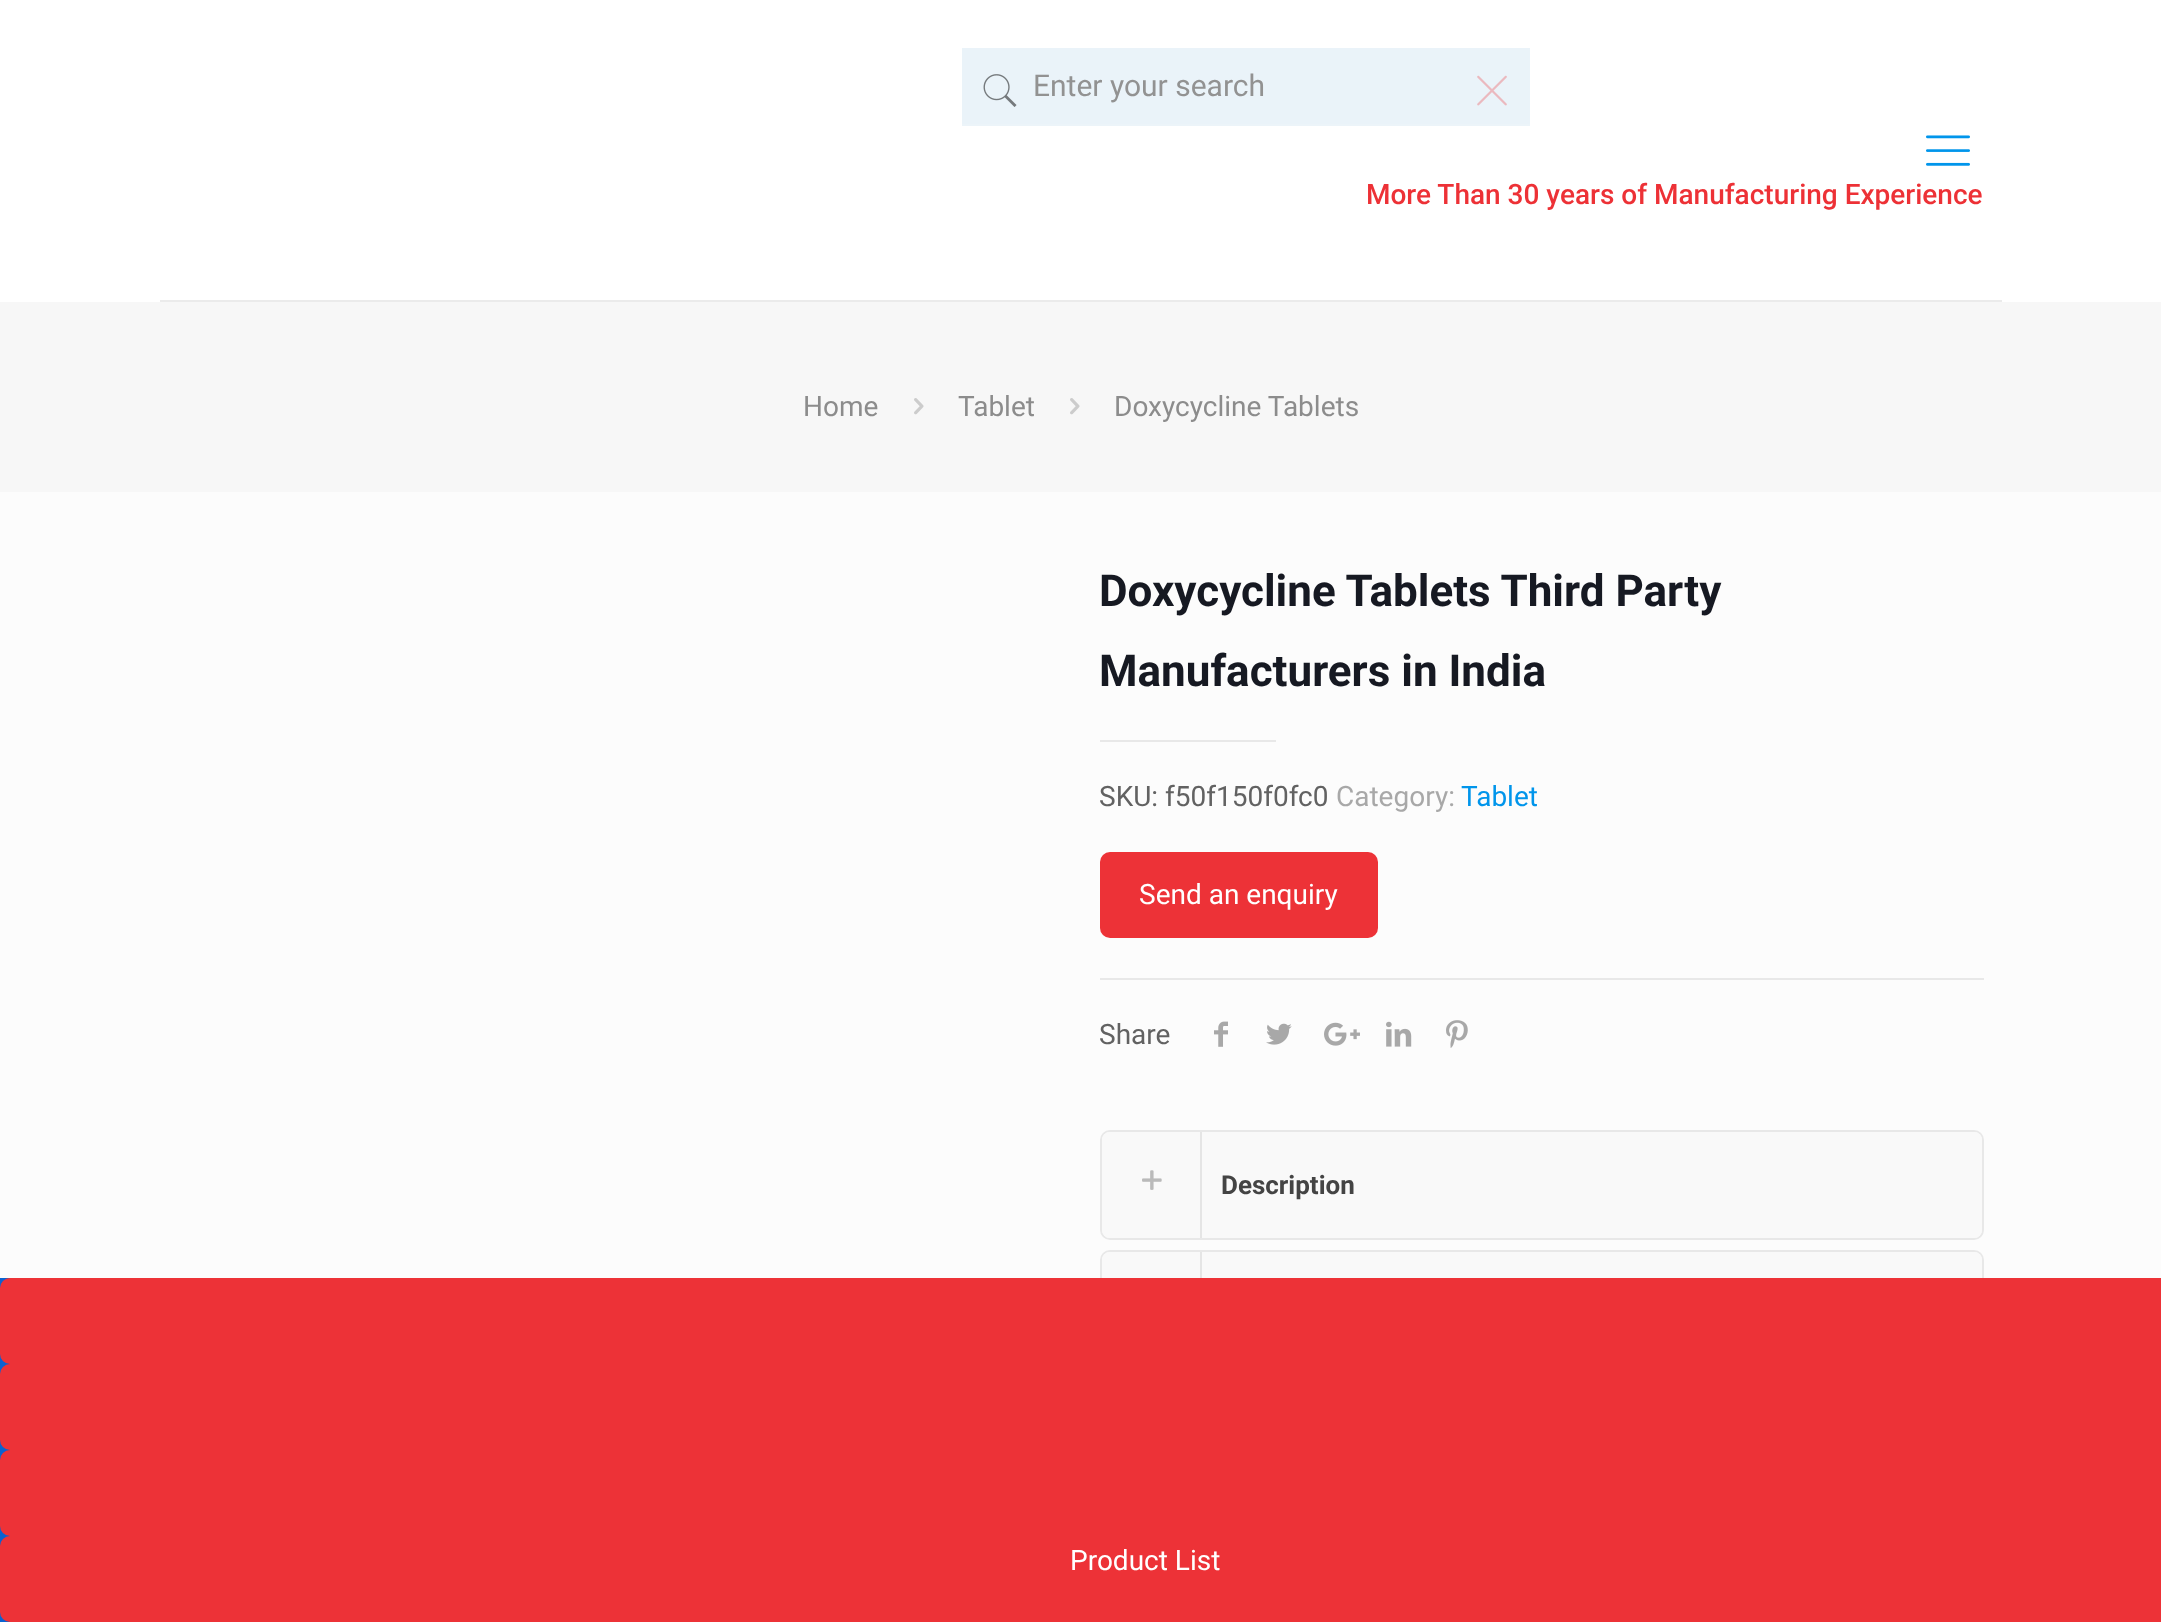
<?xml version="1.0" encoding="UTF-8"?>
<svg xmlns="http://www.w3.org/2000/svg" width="2161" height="1622">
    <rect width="100%" height="100%" fill="#FCFCFC"/>
    <rect x="0" y="0" width="2161" height="302" fill="#FFFFFF"/>
    <rect x="962" y="48" width="568" height="76" fill="#EAF3F9"/>
    <image x="983" y="74" width="34" height="33" href="img_01.png"/>
    <rect x="962" y="124" width="568" height="2" fill="#ECF4F9"/>
    <text x="1033" y="96" font-family="Roboto" font-size="30" fill="#929292">Enter your search</text>
    <image x="1477" y="75" width="30" height="31" href="img_02.png"/>
    <image x="1926" y="135" width="44" height="31" href="img_03.png"/>
    <text x="1366" y="204" font-family="Roboto" font-size="28" font-weight="500" fill="#ED3136">More Than 30 years of Manufacturing Experience</text>
    <rect x="160" y="300" width="1842" height="2" fill="#EBEBEB"/>
    <rect x="0" y="302" width="2161" height="190" fill="#F7F7F7"/>
    <text x="803" y="416" font-family="Roboto" font-size="28" fill="#8C8C8C">Home</text>
    <image x="914" y="398" width="10" height="17" href="img_04.png"/>
    <text x="958" y="416" font-family="Roboto" font-size="28" fill="#8C8C8C">Tablet</text>
    <image x="1070" y="398" width="10" height="17" href="img_04.png"/>
    <text x="1114" y="416" font-family="Roboto" font-size="28" fill="#8C8C8C">Doxycycline Tablets</text>
    <text font-family="Roboto" font-size="44" font-weight="700" fill="#161922">
        <tspan x="1099" y="606">Doxycycline Tablets Third Party</tspan>
        <tspan x="1099" y="686">Manufacturers in India</tspan>
    </text>
    <rect x="1100" y="740" width="176" height="2" fill="#E8E8E8"/>
    <text x="1099" y="806" font-family="Roboto" font-size="28" fill="#626262">SKU: f50f150f0fc0</text>
    <text x="1336" y="806" font-family="Roboto" font-size="28" fill="#A8A8A8">Category:</text>
    <text x="1461" y="806" font-family="Roboto" font-size="28" fill="#0095EB">Tablet</text>
    <rect x="1100" y="852" width="278" height="86" rx="10" fill="#ED3237"/>
    <text x="1139" y="904" font-family="Roboto" font-size="28" fill="#FFFFFF">Send an enquiry</text>
    <rect x="1100" y="978" width="884" height="2" fill="#E8E8E8"/>
    <text x="1099" y="1044" font-family="Roboto" font-size="28" fill="#626262">Share</text>
    <image x="1214" y="1021" width="14" height="26" href="img_05.png"/>
    <image x="1266" y="1023" width="26" height="22" href="img_06.png"/>
    <image x="1324" y="1022" width="36" height="24" href="img_07.png"/>
    <image x="1386" y="1021" width="26" height="26" href="img_08.png"/>
    <image x="1446" y="1020" width="22" height="28" href="img_09.png"/>
    <rect x="1101" y="1131" width="882" height="108" rx="9" fill="none" stroke="#E8E8E8" stroke-width="2"/>
    <rect x="1102" y="1132" width="880" height="106" rx="8" fill="#F9F9F9"/>
    <image x="1142" y="1170" width="20" height="20" href="img_10.png"/>
    <rect x="1200" y="1132" width="2" height="106" fill="#E5E5E5"/>
    <text x="1221" y="1194" font-family="Roboto" font-size="26" font-weight="700" fill="#444444">Description</text>
    <rect x="1101" y="1251" width="882" height="108" rx="9" fill="none" stroke="#E8E8E8" stroke-width="2"/>
    <rect x="1102" y="1252" width="880" height="106" rx="8" fill="#F9F9F9"/>
    <rect x="1200" y="1252" width="2" height="26" fill="#E5E5E5"/>
    <rect x="0" y="1278" width="10" height="344" fill="#0A62D0"/>
    <rect x="0" y="1278" width="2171" height="86" rx="10" fill="#ED3237"/>
    <rect x="0" y="1364" width="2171" height="86" rx="10" fill="#ED3237"/>
    <rect x="0" y="1450" width="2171" height="86" rx="10" fill="#ED3237"/>
    <rect x="0" y="1536" width="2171" height="86" rx="10" fill="#ED3237"/>
    <text x="1070" y="1570" font-family="Roboto" font-size="28" fill="#FFFFFF">Product List</text>
</svg>
